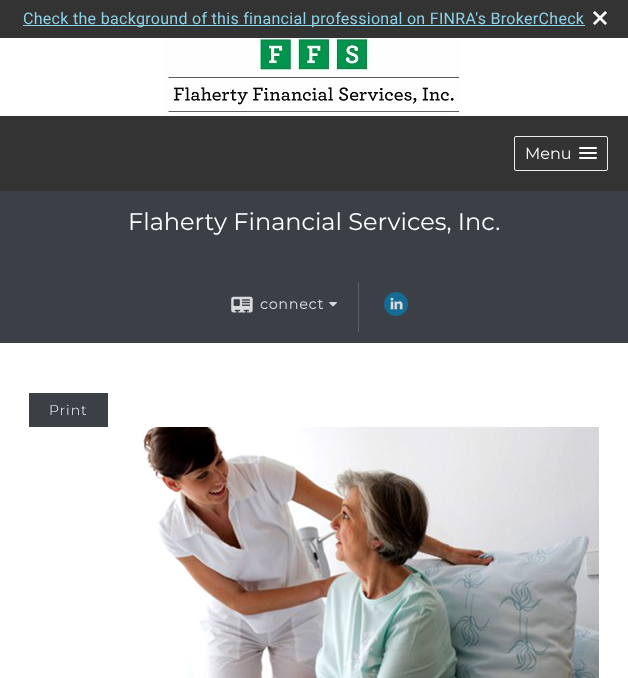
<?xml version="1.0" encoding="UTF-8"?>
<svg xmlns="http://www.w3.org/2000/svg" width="628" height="678">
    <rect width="100%" height="100%" fill="#FFFFFF"/>
    <rect x="0" y="0" width="628" height="38" fill="#333333"/>
    <rect x="23" y="25" width="562" height="1" fill="#8ED3E7"/>
    <text x="23" y="24" font-family="Roboto" font-size="16" letter-spacing="0.3" fill="#8ED3E7">Check the background of this financial professional on FINRA's BrokerCheck</text>
    <image x="593" y="11" width="14" height="14" href="img_01.png"/>
    <image x="164" y="38" width="296" height="78" href="img_02.png"/>
    <rect x="0" y="116" width="628" height="75" fill="#333333"/>
    <rect x="514.5" y="136.5" width="93" height="34" rx="1.5" fill="none" stroke="#ECECEC"/>
    <text x="525" y="159" font-family="Montserrat" font-size="16" fill="#FFFFFF">Menu</text>
    <rect x="579" y="147" width="18" height="2" rx="1" fill="#FFFFFF"/>
    <rect x="579" y="152" width="18" height="2" rx="1" fill="#FFFFFF"/>
    <rect x="579" y="157" width="18" height="2" rx="1" fill="#FFFFFF"/>
    <rect x="0" y="191" width="628" height="152" fill="#3B4046"/>
    <text x="128" y="230" font-family="Montserrat" font-size="24" fill="#FFFFFF">Flaherty Financial Services, Inc.</text>
    <image x="231" y="296" width="22" height="17" href="img_03.png"/>
    <text x="260" y="309" font-family="Montserrat" font-size="14" font-weight="700" letter-spacing="1" fill="#D8D9DA">connect</text>
    <image x="329" y="302" width="8" height="5" href="img_04.png"/>
    <rect x="358" y="282" width="1" height="50" fill="#5C6167"/>
    <image x="384" y="292" width="24" height="24" href="img_05.png"/>
    <rect x="29" y="393" width="79" height="34" fill="#3B4046"/>
    <text x="49" y="415" font-family="Montserrat" font-size="14" font-weight="300" letter-spacing="1" fill="#FFFFFF">Print</text>
    <image x="141" y="427" width="458" height="251" href="img_06.png"/>
</svg>
